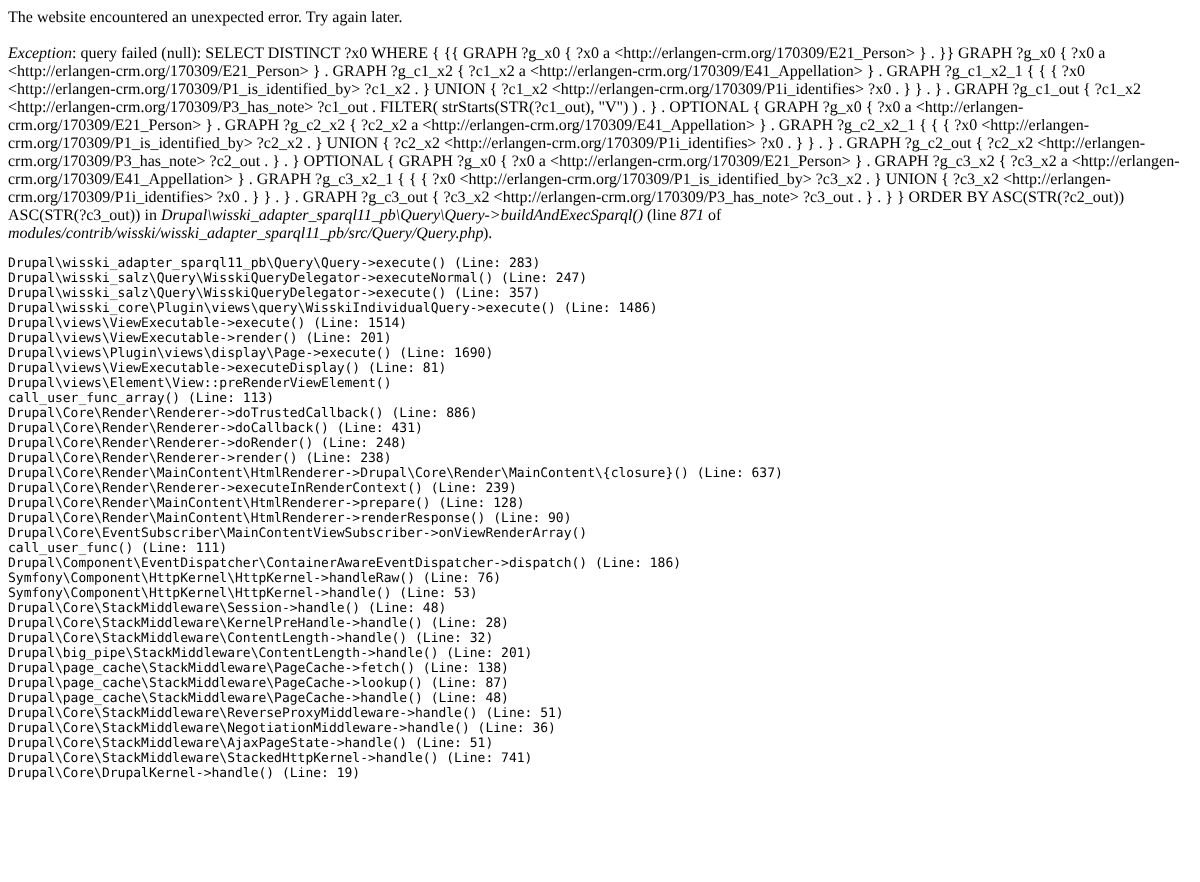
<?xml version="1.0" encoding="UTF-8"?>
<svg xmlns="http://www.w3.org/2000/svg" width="1200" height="882">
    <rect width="100%" height="100%" fill="#FFFFFF"/>
    <text x="8" y="22" font-family="Liberation Serif" font-size="16" fill="#000000">The website encountered an unexpected error. Try again later.</text>
    <text x="8" y="58" font-family="Liberation Serif" font-size="16" font-style="italic" fill="#000000">Exception</text>
    <text x="72" y="58" font-family="Liberation Serif" font-size="16" fill="#000000">: query failed (null): SELECT DISTINCT ?x0 WHERE { {{ GRAPH ?g_x0 { ?x0 a &lt;http://erlangen-crm.org/170309/E21_Person&gt; } . }} GRAPH ?g_x0 { ?x0 a</text>
    <text font-family="Liberation Serif" font-size="16" fill="#000000">
        <tspan x="8" y="76">&lt;http://erlangen-crm.org/170309/E21_Person&gt; } . GRAPH ?g_c1_x2 { ?c1_x2 a &lt;http://erlangen-crm.org/170309/E41_Appellation&gt; } . GRAPH ?g_c1_x2_1 { { { ?x0</tspan>
        <tspan x="8" y="94">&lt;http://erlangen-crm.org/170309/P1_is_identified_by&gt; ?c1_x2 . } UNION { ?c1_x2 &lt;http://erlangen-crm.org/170309/P1i_identifies&gt; ?x0 . } } . } . GRAPH ?g_c1_out { ?c1_x2</tspan>
        <tspan x="8" y="112">&lt;http://erlangen-crm.org/170309/P3_has_note&gt; ?c1_out . FILTER( strStarts(STR(?c1_out), "V") ) . } . OPTIONAL { GRAPH ?g_x0 { ?x0 a &lt;http://erlangen-</tspan>
        <tspan x="8" y="130">crm.org/170309/E21_Person&gt; } . GRAPH ?g_c2_x2 { ?c2_x2 a &lt;http://erlangen-crm.org/170309/E41_Appellation&gt; } . GRAPH ?g_c2_x2_1 { { { ?x0 &lt;http://erlangen-</tspan>
        <tspan x="8" y="148">crm.org/170309/P1_is_identified_by&gt; ?c2_x2 . } UNION { ?c2_x2 &lt;http://erlangen-crm.org/170309/P1i_identifies&gt; ?x0 . } } . } . GRAPH ?g_c2_out { ?c2_x2 &lt;http://erlangen-</tspan>
        <tspan x="8" y="166">crm.org/170309/P3_has_note&gt; ?c2_out . } . } OPTIONAL { GRAPH ?g_x0 { ?x0 a &lt;http://erlangen-crm.org/170309/E21_Person&gt; } . GRAPH ?g_c3_x2 { ?c3_x2 a &lt;http://erlangen-</tspan>
        <tspan x="8" y="184">crm.org/170309/E41_Appellation&gt; } . GRAPH ?g_c3_x2_1 { { { ?x0 &lt;http://erlangen-crm.org/170309/P1_is_identified_by&gt; ?c3_x2 . } UNION { ?c3_x2 &lt;http://erlangen-</tspan>
        <tspan x="8" y="202">crm.org/170309/P1i_identifies&gt; ?x0 . } } . } . GRAPH ?g_c3_out { ?c3_x2 &lt;http://erlangen-crm.org/170309/P3_has_note&gt; ?c3_out . } . } } ORDER BY ASC(STR(?c2_out))</tspan>
        <tspan x="8" y="220">ASC(STR(?c3_out)) in</tspan>
    </text>
    <text x="161" y="220" font-family="Liberation Serif" font-size="16" font-style="italic" fill="#000000">Drupal\wisski_adapter_sparql11_pb\Query\Query-&gt;buildAndExecSparql()</text>
    <text x="647" y="220" font-family="Liberation Serif" font-size="16" fill="#000000">(line</text>
    <text x="680" y="220" font-family="Liberation Serif" font-size="16" font-style="italic" fill="#000000">871</text>
    <text x="708" y="220" font-family="Liberation Serif" font-size="16" fill="#000000">of</text>
    <text x="8" y="238" font-family="Liberation Serif" font-size="16" font-style="italic" fill="#000000">modules/contrib/wisski/wisski_adapter_sparql11_pb/src/Query/Query.php</text>
    <text x="483" y="238" font-family="Liberation Serif" font-size="16" fill="#000000">).</text>
    <text font-family="DejaVu Sans Mono" font-size="13" fill="#000000">
        <tspan x="8" y="267">Drupal\wisski_adapter_sparql11_pb\Query\Query-&gt;execute() (Line: 283)</tspan>
        <tspan x="8" y="282">Drupal\wisski_salz\Query\WisskiQueryDelegator-&gt;executeNormal() (Line: 247)</tspan>
        <tspan x="8" y="297">Drupal\wisski_salz\Query\WisskiQueryDelegator-&gt;execute() (Line: 357)</tspan>
        <tspan x="8" y="312">Drupal\wisski_core\Plugin\views\query\WisskiIndividualQuery-&gt;execute() (Line: 1486)</tspan>
        <tspan x="8" y="327">Drupal\views\ViewExecutable-&gt;execute() (Line: 1514)</tspan>
        <tspan x="8" y="342">Drupal\views\ViewExecutable-&gt;render() (Line: 201)</tspan>
        <tspan x="8" y="357">Drupal\views\Plugin\views\display\Page-&gt;execute() (Line: 1690)</tspan>
        <tspan x="8" y="372">Drupal\views\ViewExecutable-&gt;executeDisplay() (Line: 81)</tspan>
        <tspan x="8" y="387">Drupal\views\Element\View::preRenderViewElement()</tspan>
        <tspan x="8" y="402">call_user_func_array() (Line: 113)</tspan>
        <tspan x="8" y="417">Drupal\Core\Render\Renderer-&gt;doTrustedCallback() (Line: 886)</tspan>
        <tspan x="8" y="432">Drupal\Core\Render\Renderer-&gt;doCallback() (Line: 431)</tspan>
        <tspan x="8" y="447">Drupal\Core\Render\Renderer-&gt;doRender() (Line: 248)</tspan>
        <tspan x="8" y="462">Drupal\Core\Render\Renderer-&gt;render() (Line: 238)</tspan>
        <tspan x="8" y="477">Drupal\Core\Render\MainContent\HtmlRenderer-&gt;Drupal\Core\Render\MainContent\{closure}() (Line: 637)</tspan>
        <tspan x="8" y="492">Drupal\Core\Render\Renderer-&gt;executeInRenderContext() (Line: 239)</tspan>
        <tspan x="8" y="507">Drupal\Core\Render\MainContent\HtmlRenderer-&gt;prepare() (Line: 128)</tspan>
        <tspan x="8" y="522">Drupal\Core\Render\MainContent\HtmlRenderer-&gt;renderResponse() (Line: 90)</tspan>
        <tspan x="8" y="537">Drupal\Core\EventSubscriber\MainContentViewSubscriber-&gt;onViewRenderArray()</tspan>
        <tspan x="8" y="552">call_user_func() (Line: 111)</tspan>
        <tspan x="8" y="567">Drupal\Component\EventDispatcher\ContainerAwareEventDispatcher-&gt;dispatch() (Line: 186)</tspan>
        <tspan x="8" y="582">Symfony\Component\HttpKernel\HttpKernel-&gt;handleRaw() (Line: 76)</tspan>
        <tspan x="8" y="597">Symfony\Component\HttpKernel\HttpKernel-&gt;handle() (Line: 53)</tspan>
        <tspan x="8" y="612">Drupal\Core\StackMiddleware\Session-&gt;handle() (Line: 48)</tspan>
        <tspan x="8" y="627">Drupal\Core\StackMiddleware\KernelPreHandle-&gt;handle() (Line: 28)</tspan>
        <tspan x="8" y="642">Drupal\Core\StackMiddleware\ContentLength-&gt;handle() (Line: 32)</tspan>
        <tspan x="8" y="657">Drupal\big_pipe\StackMiddleware\ContentLength-&gt;handle() (Line: 201)</tspan>
        <tspan x="8" y="672">Drupal\page_cache\StackMiddleware\PageCache-&gt;fetch() (Line: 138)</tspan>
        <tspan x="8" y="687">Drupal\page_cache\StackMiddleware\PageCache-&gt;lookup() (Line: 87)</tspan>
        <tspan x="8" y="702">Drupal\page_cache\StackMiddleware\PageCache-&gt;handle() (Line: 48)</tspan>
        <tspan x="8" y="717">Drupal\Core\StackMiddleware\ReverseProxyMiddleware-&gt;handle() (Line: 51)</tspan>
        <tspan x="8" y="732">Drupal\Core\StackMiddleware\NegotiationMiddleware-&gt;handle() (Line: 36)</tspan>
        <tspan x="8" y="747">Drupal\Core\StackMiddleware\AjaxPageState-&gt;handle() (Line: 51)</tspan>
        <tspan x="8" y="762">Drupal\Core\StackMiddleware\StackedHttpKernel-&gt;handle() (Line: 741)</tspan>
        <tspan x="8" y="777">Drupal\Core\DrupalKernel-&gt;handle() (Line: 19)</tspan>
    </text>
</svg>
